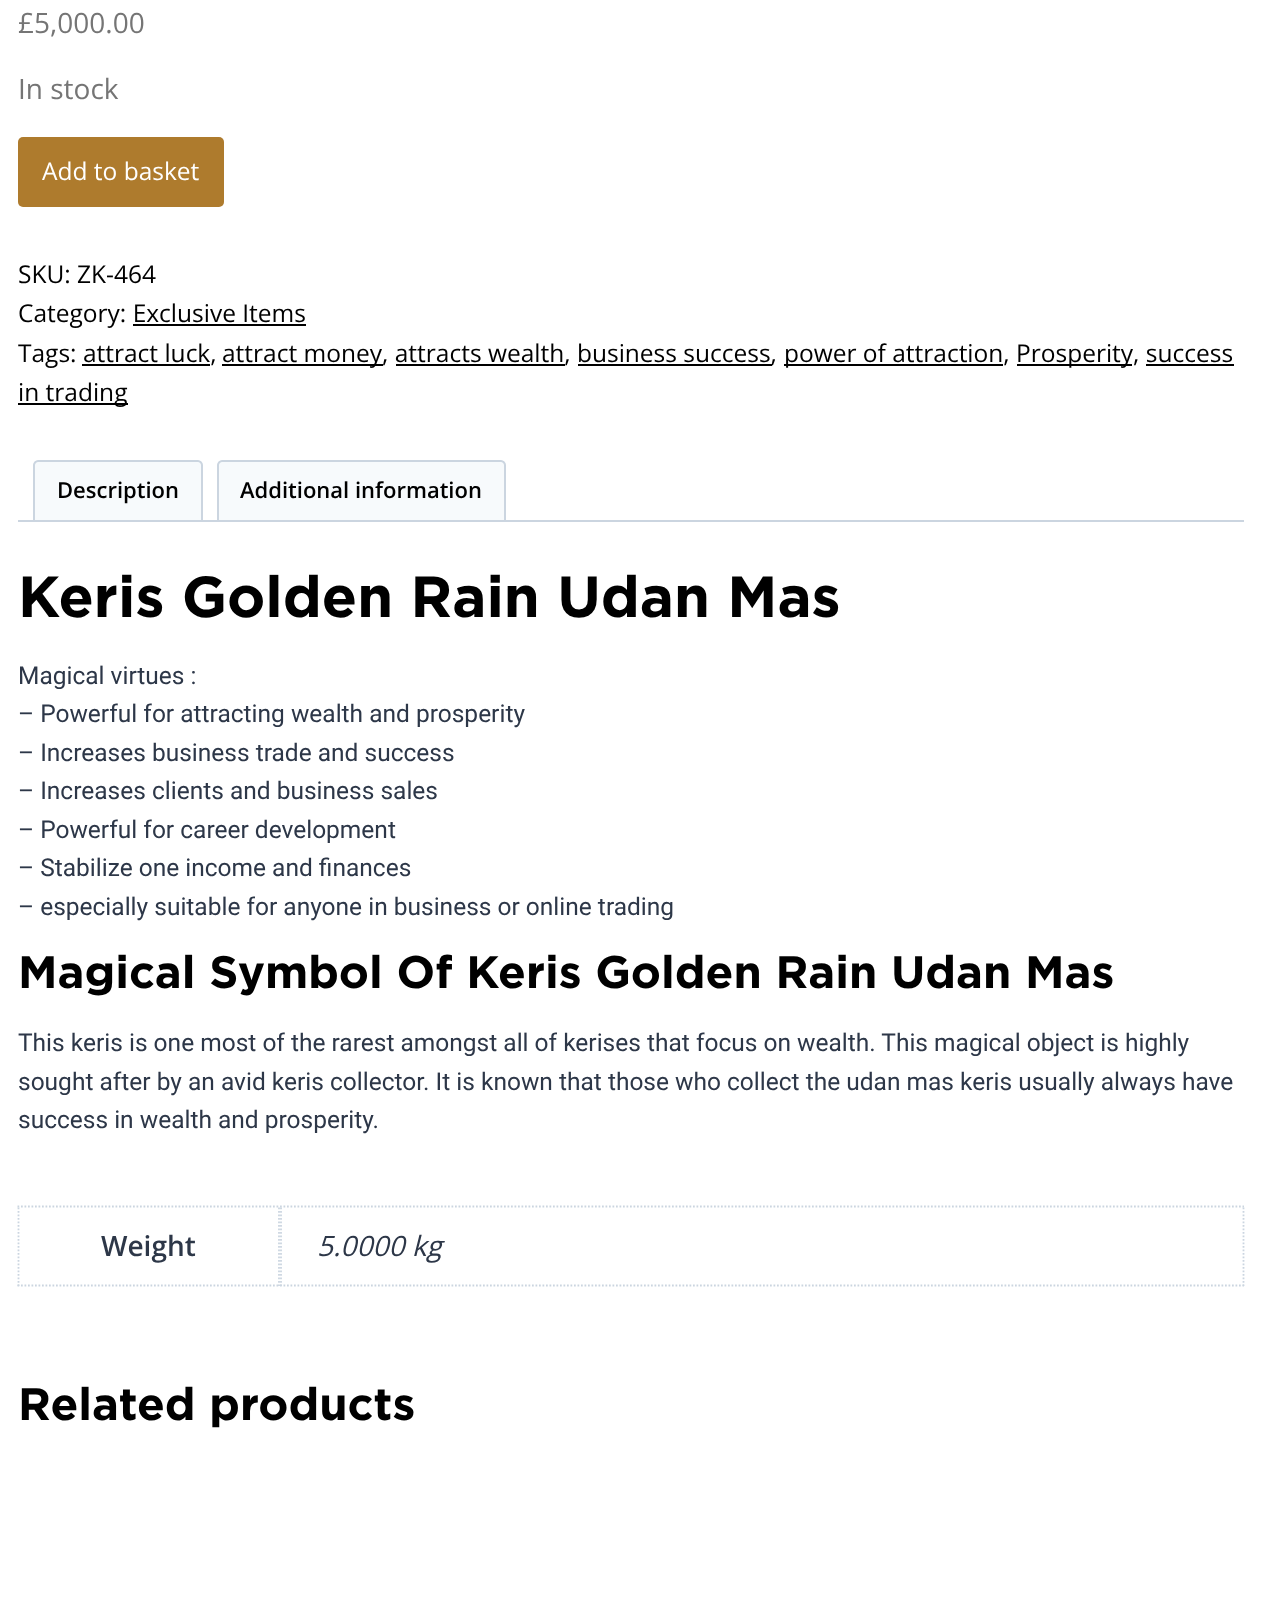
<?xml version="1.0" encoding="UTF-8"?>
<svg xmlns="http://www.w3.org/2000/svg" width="1261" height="1617">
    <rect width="100%" height="100%" fill="#FFFFFF"/>
    <text x="18" y="33" font-family="Open Sans" font-size="28" fill="#757575">£5,000.00</text>
    <text x="18" y="99" font-family="Open Sans" font-size="28" fill="#757575">In stock</text>
    <rect x="18" y="137" width="206" height="70" rx="5" fill="#AE7B2D"/>
    <text x="42" y="180" font-family="Open Sans" font-size="24.5" fill="#FFFFFF">Add to basket</text>
    <text font-family="Open Sans" font-size="24.5" fill="#000000">
        <tspan x="18" y="283">SKU: ZK-464</tspan>
        <tspan x="18" y="322">Category: Exclusive Items</tspan>
    </text>
    <rect x="133" y="324" width="173" height="2" fill="#000000"/>
    <text x="18" y="362" font-family="Open Sans" font-size="24.5" fill="#000000">Tags: attract luck,</text>
    <rect x="222" y="364" width="161" height="2" fill="#000000"/>
    <text x="222" y="362" font-family="Open Sans" font-size="24.5" fill="#000000">attract money, attracts wealth, business success,</text>
    <rect x="784" y="364" width="219" height="2" fill="#000000"/>
    <text x="784" y="362" font-family="Open Sans" font-size="24.5" fill="#000000">power of attraction,</text>
    <rect x="1017" y="364" width="115" height="2" fill="#000000"/>
    <text x="1016" y="362" font-family="Open Sans" font-size="24.5" fill="#000000">Prosperity, success</text>
    <rect x="82" y="364" width="128" height="2" fill="#000000"/>
    <rect x="396" y="364" width="169" height="2" fill="#000000"/>
    <rect x="578" y="364" width="194" height="2" fill="#000000"/>
    <rect x="18" y="403" width="110" height="2" fill="#000000"/>
    <text x="18" y="401" font-family="Open Sans" font-size="24.5" fill="#000000">in trading</text>
    <rect x="1146" y="364" width="88" height="2" fill="#000000"/>
    <path d="M 38 461 H 198 C 200 461 202 463 202 465 V 521 H 34 V 465 C 34 463 36 461 38 461 Z" fill="#F7FAFC" stroke="#CBD5E0" stroke-width="2"/>
    <text x="57" y="498" font-family="Open Sans" font-size="22" font-weight="600" fill="#000000">Description</text>
    <path d="M 222 461 H 501 C 503 461 505 463 505 465 V 521 H 218 V 465 C 218 463 220 461 222 461 Z" fill="#F7FAFC" stroke="#CBD5E0" stroke-width="2"/>
    <text x="240" y="498" font-family="Open Sans" font-size="22" font-weight="600" fill="#000000">Additional information</text>
    <rect x="18" y="520" width="1226" height="2" fill="#CBD5E0"/>
    <text x="18" y="617" font-family="Gotham" font-size="57.75" font-weight="700" fill="#000000">Keris Golden Rain Udan Mas</text>
    <text font-family="Roboto" font-size="24.5" fill="#2D3748">
        <tspan x="18" y="684">Magical virtues :</tspan>
        <tspan x="18" y="722">– Powerful for attracting wealth and prosperity</tspan>
        <tspan x="18" y="761">– Increases business trade and success</tspan>
        <tspan x="18" y="799">– Increases clients and business sales</tspan>
        <tspan x="18" y="838">– Powerful for career development</tspan>
        <tspan x="18" y="876">– Stabilize one income and finances</tspan>
        <tspan x="18" y="915">– especially suitable for anyone in business or online trading</tspan>
    </text>
    <text x="18" y="988" font-family="Gotham" font-size="45.5" font-weight="700" fill="#000000">Magical Symbol Of Keris Golden Rain Udan Mas</text>
    <text font-family="Roboto" font-size="24.5" fill="#2D3748">
        <tspan x="18" y="1051">This keris is one most of the rarest amongst all of kerises that focus on wealth. This magical object is highly</tspan>
        <tspan x="18" y="1090">sought after by an avid keris collector. It is known that those who collect the udan mas keris usually always have</tspan>
        <tspan x="18" y="1128">success in wealth and prosperity.</tspan>
    </text>
    <path d="M 17.5 1206.5 H 1244" fill="none" stroke="#CBD5E0" stroke-width="1.8" stroke-dasharray="1.75 1.75"/>
    <path d="M 279 1207.5 V 1286" fill="none" stroke="#CBD5E0" stroke-width="1.8" stroke-dasharray="1.75 1.75"/>
    <path d="M 17.5 1285.5 H 280" fill="none" stroke="#CBD5E0" stroke-width="1.8" stroke-dasharray="1.75 1.75"/>
    <path d="M 18.5 1207.5 V 1286" fill="none" stroke="#CBD5E0" stroke-width="1.8" stroke-dasharray="1.75 1.75"/>
    <text x="101" y="1256" font-family="Open Sans" font-size="28" font-weight="600" fill="#2D3748">Weight</text>
    <path d="M 1243.5 1207.5 V 1286" fill="none" stroke="#CBD5E0" stroke-width="1.8" stroke-dasharray="1.75 1.75"/>
    <path d="M 280 1285.5 H 1244" fill="none" stroke="#CBD5E0" stroke-width="1.8" stroke-dasharray="1.75 1.75"/>
    <path d="M 281 1207.5 V 1286" fill="none" stroke="#CBD5E0" stroke-width="1.8" stroke-dasharray="1.75 1.75"/>
    <text x="317" y="1256" font-family="Open Sans" font-size="28" font-style="italic" fill="#2D3748">5.0000 kg</text>
    <text x="18" y="1420" font-family="Gotham" font-size="45.5" font-weight="700" fill="#000000">Related products</text>
</svg>
